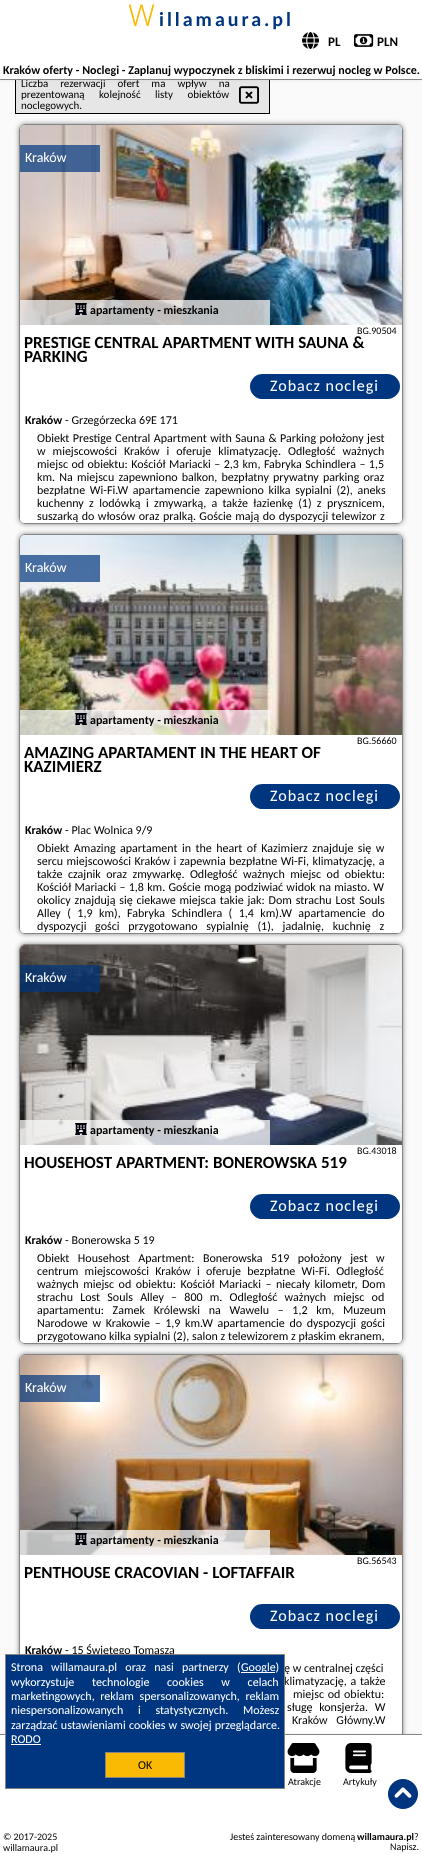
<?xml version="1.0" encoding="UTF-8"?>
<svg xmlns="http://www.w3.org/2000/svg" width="422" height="1854">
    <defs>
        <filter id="blur1" x="-50%" y="-200%" width="200%" height="500%"><feGaussianBlur stdDeviation="2.5"/></filter>
    </defs>
    <rect width="100%" height="100%" fill="#FAFAFA"/>
    <rect x="16" y="80" width="253" height="33" fill="#E6E6E6"/>
    <rect x="15.5" y="74.5" width="254" height="39" fill="none" stroke="#000000"/>
    <rect x="0" y="-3" width="422" height="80" fill="#858585" filter="url(#blur1)"/>
    <rect x="0" y="0" width="422" height="79" fill="#FFFFFF"/>
    <text x="21" y="87" word-spacing="9.5" font-family="Carlito" font-size="11" fill="#000000">Liczba rezerwacji ofert ma wpływ na</text>
    <rect x="0" y="79" width="422" height="1" fill="#858585"/>
    <text x="128" y="26" font-family="Noto Sans" font-size="30" font-weight="300" letter-spacing="3" fill="#FAB902">W</text>
    <text x="159" y="26" font-family="Carlito" font-size="20" font-weight="700" letter-spacing="3" fill="#00367F">illamaura.pl</text>
    <image x="302" y="32" width="17" height="17" href="img_01.png"/>
    <text x="328" y="46" font-family="Carlito" font-size="13" font-weight="700" fill="#000000">PL</text>
    <image x="354" y="34" width="20" height="13" href="img_02.png"/>
    <text x="377" y="46" font-family="Carlito" font-size="13" font-weight="700" fill="#000000">PLN</text>
    <text x="3" y="74" font-family="Carlito" font-size="12" font-weight="700" fill="#000000">Kraków oferty - Noclegi - Zaplanuj wypoczynek z bliskimi i rezerwuj nocleg w Polsce.</text>
    <text x="21" y="98" word-spacing="12" font-family="Carlito" font-size="11" fill="#000000">prezentowaną kolejność listy obiektów</text>
    <image x="239" y="86" width="20" height="18" href="img_03.png"/>
    <text x="21" y="109" font-family="Carlito" font-size="11" fill="#000000">noclegowych.</text>
    <rect x="19" y="124" width="384" height="400" rx="6" fill="#858585" filter="url(#blur1)"/>
    <image x="19" y="124" width="384" height="400" href="img_04.png"/>
    <rect x="19.5" y="124.5" width="383" height="399" rx="5.5" fill="none" stroke="#858585"/>
    <image x="20" y="125" width="382" height="200" href="img_05.png"/>
    <rect x="60" y="373" width="342" height="30" fill="#FFFFFF"/>
    <rect x="20" y="145" width="80" height="27" fill="#00367F" fill-opacity="0.7"/>
    <text x="25" y="162" font-family="Carlito" font-size="14" fill="#FFFFFF">Kraków</text>
    <rect x="20" y="300" width="250" height="25" fill="#FAFAFA" fill-opacity="0.75"/>
    <image x="75" y="303" width="12" height="12" href="img_06.png"/>
    <text x="90" y="314" font-family="Carlito" font-size="12" font-weight="700" fill="#000000">apartamenty - mieszkania</text>
    <text font-family="Carlito" font-size="17" font-weight="700" fill="#000000">
        <tspan x="24" y="348">PRESTIGE CENTRAL APARTMENT WITH SAUNA &amp;</tspan>
        <tspan x="24" y="362">PARKING</tspan>
    </text>
    <rect x="250" y="374" width="150" height="25" rx="12.5" fill="#00367F"/>
    <text x="270" y="391" font-family="Carlito" font-size="16" letter-spacing="1" fill="#FFFFFF">Zobacz noclegi</text>
    <text x="357" y="334" font-family="Carlito" font-size="10" fill="#000000">BG.90504</text>
    <path d="M 20 403 H 402 V 518 C 402 521 400 523 397 523 H 25 C 22 523 20 521 20 518 Z" fill="#FFFFFF"/>
    <text x="25" y="424" font-family="Carlito" font-size="12" font-weight="700" fill="#000000">Kraków</text>
    <text x="65" y="424" font-family="Carlito" font-size="12" fill="#000000">- Grzegórzecka 69E 171</text>
    <text font-family="Carlito" font-size="12" fill="#000000">
        <tspan x="37" y="442" word-spacing="0.75">Obiekt Prestige Central Apartment with Sauna &amp; Parking położony jest</tspan>
        <tspan x="37" y="455" word-spacing="4.25">w miejscowości Kraków i oferuje klimatyzację. Odległość ważnych</tspan>
        <tspan x="37" y="468" word-spacing="0.75">miejsc od obiektu: Kościół Mariacki – 2,3 km, Fabryka Schindlera – 1,5</tspan>
        <tspan x="37" y="481" word-spacing="1.5">km. Na miejscu zapewniono balkon, bezpłatny prywatny parking oraz</tspan>
        <tspan x="37" y="494" word-spacing="2">bezpłatne Wi-Fi.W apartamencie zapewniono kilka sypialni (2), aneks</tspan>
        <tspan x="37" y="507" word-spacing="2.6">kuchenny z lodówką i zmywarką, a także łazienkę (1) z prysznicem,</tspan>
        <tspan x="37" y="520" word-spacing="0.75">suszarką do włosów oraz pralką. Goście mają do dyspozycji telewizor z</tspan>
    </text>
    <rect x="19" y="534" width="384" height="400" rx="6" fill="#858585" filter="url(#blur1)"/>
    <image x="19" y="534" width="384" height="400" href="img_04.png"/>
    <rect x="19.5" y="534.5" width="383" height="399" rx="5.5" fill="none" stroke="#858585"/>
    <image x="20" y="535" width="382" height="200" href="img_07.png"/>
    <rect x="60" y="783" width="342" height="30" fill="#FFFFFF"/>
    <rect x="20" y="555" width="80" height="27" fill="#00367F" fill-opacity="0.7"/>
    <text x="25" y="572" font-family="Carlito" font-size="14" fill="#FFFFFF">Kraków</text>
    <rect x="20" y="710" width="250" height="25" fill="#FAFAFA" fill-opacity="0.75"/>
    <image x="75" y="713" width="12" height="12" href="img_08.png"/>
    <text x="90" y="724" font-family="Carlito" font-size="12" font-weight="700" fill="#000000">apartamenty - mieszkania</text>
    <text font-family="Carlito" font-size="17" font-weight="700" fill="#000000">
        <tspan x="24" y="758">AMAZING APARTAMENT IN THE HEART OF</tspan>
        <tspan x="24" y="772">KAZIMIERZ</tspan>
    </text>
    <rect x="250" y="784" width="150" height="25" rx="12.5" fill="#00367F"/>
    <text x="270" y="801" font-family="Carlito" font-size="16" letter-spacing="1" fill="#FFFFFF">Zobacz noclegi</text>
    <text x="357" y="744" font-family="Carlito" font-size="10" fill="#000000">BG.56660</text>
    <path d="M 20 813 H 402 V 928 C 402 931 400 933 397 933 H 25 C 22 933 20 931 20 928 Z" fill="#FFFFFF"/>
    <text x="25" y="834" font-family="Carlito" font-size="12" font-weight="700" fill="#000000">Kraków</text>
    <text x="65" y="834" font-family="Carlito" font-size="12" fill="#000000">- Plac Wolnica 9/9</text>
    <text font-family="Carlito" font-size="12" fill="#000000">
        <tspan x="37" y="852" word-spacing="1.75">Obiekt Amazing apartament in the heart of Kazimierz znajduje się w</tspan>
        <tspan x="37" y="865" word-spacing="0.75">sercu miejscowości Kraków i zapewnia bezpłatne Wi-Fi, klimatyzację, a</tspan>
        <tspan x="37" y="878" word-spacing="2.75">także czajnik oraz zmywarkę. Odległość ważnych miejsc od obiektu:</tspan>
        <tspan x="37" y="891" word-spacing="0.5">Kościół Mariacki – 1,8 km. Goście mogą podziwiać widok na miasto. W</tspan>
        <tspan x="37" y="904" word-spacing="1.1">okolicy znajdują się ciekawe miejsca takie jak: Dom strachu Lost Souls</tspan>
        <tspan x="37" y="917" word-spacing="3.75">Alley ( 1,9 km), Fabryka Schindlera ( 1,4 km).W apartamencie do</tspan>
        <tspan x="37" y="930" word-spacing="6">dyspozycji gości przygotowano sypialnię (1), jadalnię, kuchnię z</tspan>
    </text>
    <rect x="19" y="944" width="384" height="400" rx="6" fill="#858585" filter="url(#blur1)"/>
    <image x="19" y="944" width="384" height="400" href="img_04.png"/>
    <rect x="19.5" y="944.5" width="383" height="399" rx="5.5" fill="none" stroke="#858585"/>
    <image x="20" y="945" width="382" height="200" href="img_09.png"/>
    <rect x="60" y="1193" width="342" height="30" fill="#FFFFFF"/>
    <rect x="20" y="965" width="80" height="27" fill="#00367F" fill-opacity="0.7"/>
    <text x="25" y="982" font-family="Carlito" font-size="14" fill="#FFFFFF">Kraków</text>
    <rect x="20" y="1120" width="250" height="25" fill="#FAFAFA" fill-opacity="0.75"/>
    <image x="75" y="1123" width="12" height="12" href="img_10.png"/>
    <text x="90" y="1134" font-family="Carlito" font-size="12" font-weight="700" fill="#000000">apartamenty - mieszkania</text>
    <text x="24" y="1168" font-family="Carlito" font-size="17" font-weight="700" fill="#000000">HOUSEHOST APARTMENT: BONEROWSKA 519</text>
    <rect x="250" y="1194" width="150" height="25" rx="12.5" fill="#00367F"/>
    <text x="270" y="1211" font-family="Carlito" font-size="16" letter-spacing="1" fill="#FFFFFF">Zobacz noclegi</text>
    <text x="357" y="1154" font-family="Carlito" font-size="10" fill="#000000">BG.43018</text>
    <path d="M 20 1223 H 402 V 1338 C 402 1341 400 1343 397 1343 H 25 C 22 1343 20 1341 20 1338 Z" fill="#FFFFFF"/>
    <text x="25" y="1244" font-family="Carlito" font-size="12" font-weight="700" fill="#000000">Kraków</text>
    <text x="65" y="1244" font-family="Carlito" font-size="12" fill="#000000">- Bonerowska 5 19</text>
    <text font-family="Carlito" font-size="12" fill="#000000">
        <tspan x="37" y="1262" word-spacing="5.75">Obiekt Househost Apartment: Bonerowska 519 położony jest w</tspan>
        <tspan x="37" y="1275" word-spacing="3.5">centrum miejscowości Kraków i oferuje bezpłatne Wi-Fi. Odległość</tspan>
        <tspan x="37" y="1288" word-spacing="1.75">ważnych miejsc od obiektu: Kościół Mariacki – niecały kilometr, Dom</tspan>
        <tspan x="37" y="1301" word-spacing="4.5">strachu Lost Souls Alley – 800 m. Odległość ważnych miejsc od</tspan>
        <tspan x="37" y="1314" word-spacing="6">apartamentu: Zamek Królewski na Wawelu – 1,2 km, Muzeum</tspan>
        <tspan x="37" y="1327" word-spacing="1.9">Narodowe w Krakowie – 1,9 km.W apartamencie do dyspozycji gości</tspan>
        <tspan x="37" y="1340">przygotowano kilka sypialni (2), salon z telewizorem z płaskim ekranem,</tspan>
    </text>
    <rect x="19" y="1354" width="384" height="400" rx="6" fill="#858585" filter="url(#blur1)"/>
    <image x="19" y="1354" width="384" height="6" href="img_11.png"/>
    <rect x="19.5" y="1354.5" width="383" height="399" rx="5.5" fill="none" stroke="#858585"/>
    <image x="20" y="1355" width="382" height="200" href="img_12.png"/>
    <rect x="20" y="1555" width="382" height="179" fill="#FFFFFF"/>
    <rect x="20" y="1375" width="80" height="27" fill="#00367F" fill-opacity="0.7"/>
    <text x="25" y="1392" font-family="Carlito" font-size="14" fill="#FFFFFF">Kraków</text>
    <rect x="20" y="1530" width="250" height="25" fill="#FAFAFA" fill-opacity="0.75"/>
    <image x="75" y="1533" width="12" height="12" href="img_13.png"/>
    <text x="90" y="1544" font-family="Carlito" font-size="12" font-weight="700" fill="#000000">apartamenty - mieszkania</text>
    <text x="24" y="1578" font-family="Carlito" font-size="17" font-weight="700" fill="#000000">PENTHOUSE CRACOVIAN - LOFTAFFAIR</text>
    <rect x="250" y="1604" width="150" height="25" rx="12.5" fill="#00367F"/>
    <text x="270" y="1621" font-family="Carlito" font-size="16" letter-spacing="1" fill="#FFFFFF">Zobacz noclegi</text>
    <text x="357" y="1564" font-family="Carlito" font-size="10" fill="#000000">BG.56543</text>
    <text x="25" y="1654" font-family="Carlito" font-size="12" font-weight="700" fill="#000000">Kraków</text>
    <text x="65" y="1654" font-family="Carlito" font-size="12" fill="#000000">- 15 Świętego Tomasza</text>
    <text font-family="Carlito" font-size="12" fill="#000000">
        <tspan x="284" y="1672">ę w centralnej części</tspan>
        <tspan x="284" y="1685" word-spacing="1">klimatyzację, a także</tspan>
    </text>
    <text x="293" y="1698" word-spacing="1" font-family="Carlito" font-size="12" fill="#000000">miejsc od obiektu:</text>
    <text x="287" y="1711" word-spacing="4" font-family="Carlito" font-size="12" fill="#000000">sługę konsjerża. W</text>
    <text x="292" y="1724" word-spacing="6" font-family="Carlito" font-size="12" fill="#000000">Kraków Główny.W</text>
    <rect x="0" y="1737" width="422" height="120" fill="#858585" filter="url(#blur1)"/>
    <rect x="0" y="1735" width="422" height="119" fill="#FFFFFF"/>
    <rect x="0" y="1734" width="422" height="1" fill="#858585"/>
    <rect x="5.5" y="1654.5" width="279" height="134" fill="#00367F" stroke="#858585"/>
    <text x="11" y="1671" word-spacing="5.5" font-family="Carlito" font-size="12" fill="#FFFFFF">Strona willamaura.pl oraz nasi partnerzy (</text>
    <rect x="241" y="1672" width="34" height="1" fill="#FFFFFF"/>
    <text x="241" y="1671" font-family="Carlito" font-size="12" fill="#FFFFFF">Google)</text>
    <text font-family="Carlito" font-size="12" fill="#FFFFFF">
        <tspan x="11" y="1686" word-spacing="15">wykorzystuje technologie cookies w celach</tspan>
        <tspan x="11" y="1700" word-spacing="3">marketingowych, reklam spersonalizowanych, reklam</tspan>
        <tspan x="11" y="1714" word-spacing="12">niespersonalizowanych i statystycznych. Możesz</tspan>
        <tspan x="11" y="1729" word-spacing="0.5">zarządzać ustawieniami cookies w swojej przeglądarce.</tspan>
        <tspan x="11" y="1743">RODO</tspan>
    </text>
    <rect x="11" y="1744" width="30" height="1" fill="#FFFFFF"/>
    <rect x="105.5" y="1752.5" width="79" height="25" fill="#FAB902" stroke="#858585"/>
    <text x="138" y="1769" font-family="Carlito" font-size="12" fill="#000000">OK</text>
    <image x="287" y="1743" width="33" height="30" href="img_14.png"/>
    <text x="288" y="1785" font-family="Carlito" font-size="10" fill="#000000">Atrakcje</text>
    <image x="345" y="1743" width="27" height="30" href="img_15.png"/>
    <text x="343" y="1785" font-family="Carlito" font-size="10" fill="#000000">Artykuły</text>
    <text font-family="Carlito" font-size="10" fill="#000000">
        <tspan x="3" y="1840">© 2017-2025</tspan>
        <tspan x="3" y="1851">willamaura.pl</tspan>
    </text>
    <text x="230" y="1840" font-family="Carlito" font-size="10" fill="#000000">Jesteś zainteresowany domeną</text>
    <text x="357" y="1840" font-family="Carlito" font-size="10" font-weight="700" fill="#000000">willamaura.pl</text>
    <text x="414" y="1840" font-family="Carlito" font-size="10" fill="#000000">?</text>
    <text x="390" y="1850" font-family="Carlito" font-size="10" fill="#000000">Napisz.</text>
    <image x="388" y="1779" width="30" height="30" href="img_16.png"/>
</svg>
